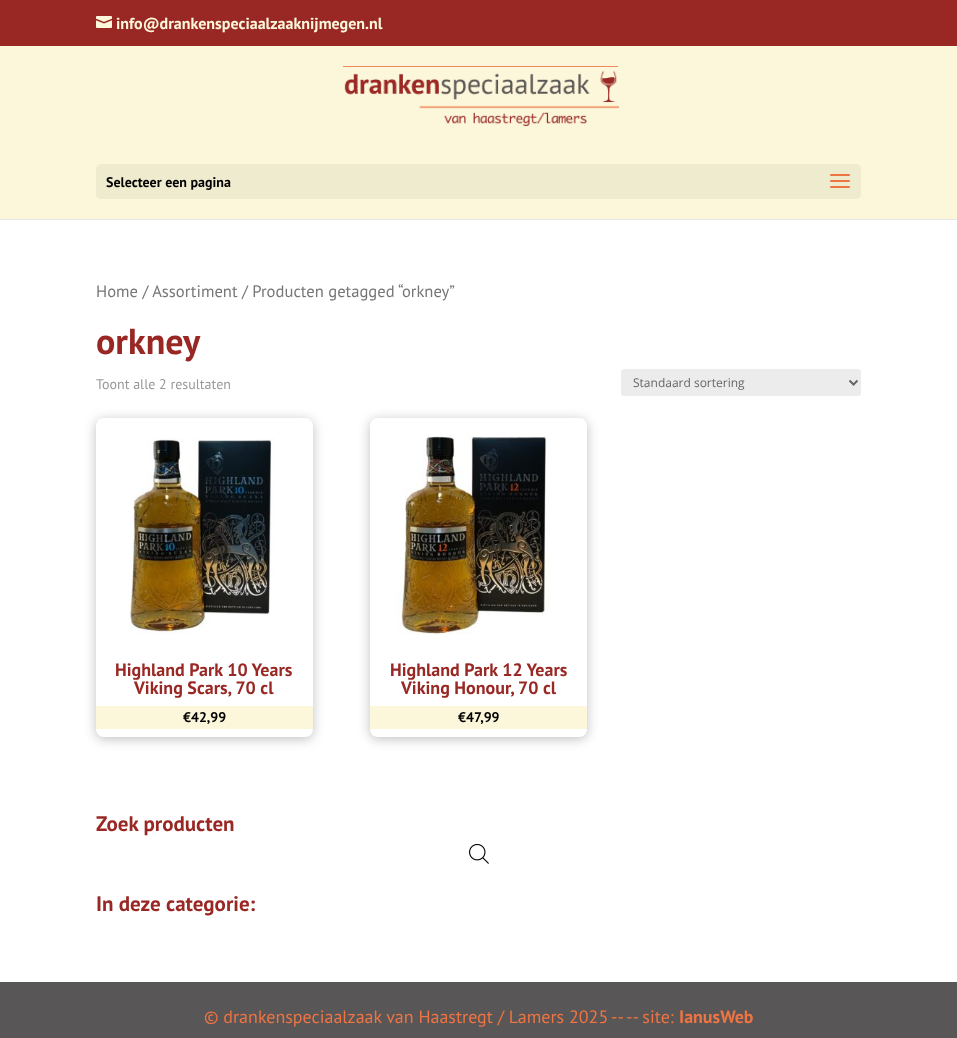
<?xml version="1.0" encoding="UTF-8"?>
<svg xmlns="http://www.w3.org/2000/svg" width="957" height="1038">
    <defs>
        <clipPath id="clip1"><path d="M 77 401 H 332 V 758 H 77 Z M 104 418 H 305 C 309.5 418 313 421.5 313 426 V 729 C 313 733.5 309.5 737 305 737 H 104 C 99.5 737 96 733.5 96 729 V 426 C 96 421.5 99.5 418 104 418 Z" clip-rule="evenodd"/></clipPath>
        <filter id="blur1" x="-50%" y="-200%" width="200%" height="500%"><feGaussianBlur stdDeviation="6"/></filter>
        <clipPath id="clip2"><path d="M 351 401 H 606 V 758 H 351 Z M 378 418 H 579 C 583.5 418 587 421.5 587 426 V 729 C 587 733.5 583.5 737 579 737 H 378 C 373.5 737 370 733.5 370 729 V 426 C 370 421.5 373.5 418 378 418 Z" clip-rule="evenodd"/></clipPath>
    </defs>
    <rect width="100%" height="100%" fill="#FFFFFF"/>
    <rect x="0" y="0" width="957" height="46" fill="#992825"/>
    <image x="96" y="16" width="16" height="12" href="img_01.png"/>
    <text x="116" y="29" font-family="PT Sans" font-size="16" font-weight="700" fill="#FCF7DA">info@drankenspeciaalzaaknijmegen.nl</text>
    <rect x="0" y="219" width="957" height="1" fill="#E6E6E6"/>
    <rect x="0" y="46" width="957" height="173" fill="#FCF7DA"/>
    <image x="343" y="66" width="276" height="60" href="img_02.png"/>
    <rect x="96" y="164" width="765" height="35" rx="5" fill="#EFEBCF"/>
    <text x="106" y="187" font-family="PT Sans" font-size="14" font-weight="700" fill="#000000">Selecteer een pagina</text>
    <image x="830" y="174" width="20" height="14" href="img_03.png"/>
    <text x="96" y="297" font-family="PT Sans" font-size="16.6" fill="#767676">Home / Assortiment / Producten getagged “orkney”</text>
    <text x="96" y="354" font-family="PT Sans" font-size="36" font-weight="700" fill="#992825">orkney</text>
    <text x="96" y="389" font-family="PT Sans" font-size="14" fill="#999999">Toont alle 2 resultaten</text>
    <rect x="621" y="369" width="240" height="27" rx="3" fill="#ECECEC"/>
    <path d="M 849.5 380.5 L 853.5 384.5 L 857.5 380.5" fill="none" stroke="#666666" stroke-width="2"/>
    <text x="633" y="387" font-family="Open Sans" font-size="12" fill="#666666">Standaard sortering</text>
    <g clip-path="url(#clip1)">
        <rect x="96" y="420" width="217" height="319" rx="8" fill="#000000" fill-opacity="0.25" filter="url(#blur1)"/>
    </g>
    <image x="130" y="438" width="145" height="197" href="img_04.png"/>
    <text x="115" y="676" font-family="PT Sans" font-size="18" font-weight="700" fill="#992825">Highland Park 10 Years</text>
    <text x="134" y="694" font-family="PT Sans" font-size="18" font-weight="700" fill="#992825">Viking Scars, 70 cl</text>
    <rect x="96" y="706" width="217" height="23" fill="#FCF7DA"/>
    <text x="183" y="722" font-family="PT Sans" font-size="14" font-weight="700" fill="#000000">€42,99</text>
    <g clip-path="url(#clip2)">
        <rect x="370" y="420" width="217" height="319" rx="8" fill="#000000" fill-opacity="0.25" filter="url(#blur1)"/>
    </g>
    <image x="394" y="436" width="155" height="199" href="img_05.png"/>
    <text x="390" y="676" font-family="PT Sans" font-size="18" font-weight="700" fill="#992825">Highland Park 12 Years</text>
    <text x="401" y="694" font-family="PT Sans" font-size="18" font-weight="700" fill="#992825">Viking Honour, 70 cl</text>
    <rect x="370" y="706" width="217" height="23" fill="#FCF7DA"/>
    <text x="458" y="722" font-family="PT Sans" font-size="14" font-weight="700" fill="#000000">€47,99</text>
    <text x="96" y="831" font-family="PT Sans" font-size="21" font-weight="700" fill="#992825">Zoek producten</text>
    <image x="469" y="844" width="20" height="20" href="img_06.png"/>
    <text x="96" y="911" font-family="PT Sans" font-size="21" font-weight="700" fill="#992825">In deze categorie:</text>
    <rect x="0" y="982" width="957" height="56" fill="#585656"/>
    <text x="204" y="1023" font-family="PT Sans" font-size="18" fill="#EE7443">© drankenspeciaalzaak van Haastregt / Lamers 2025</text>
    <text x="611" y="1023" font-family="PT Sans" font-size="18" fill="#EE7443">--</text>
    <text x="626" y="1023" font-family="PT Sans" font-size="18" fill="#EE7443">-- site:</text>
    <text x="679" y="1023" font-family="PT Sans" font-size="18" font-weight="700" fill="#EE7443">IanusWeb</text>
</svg>
